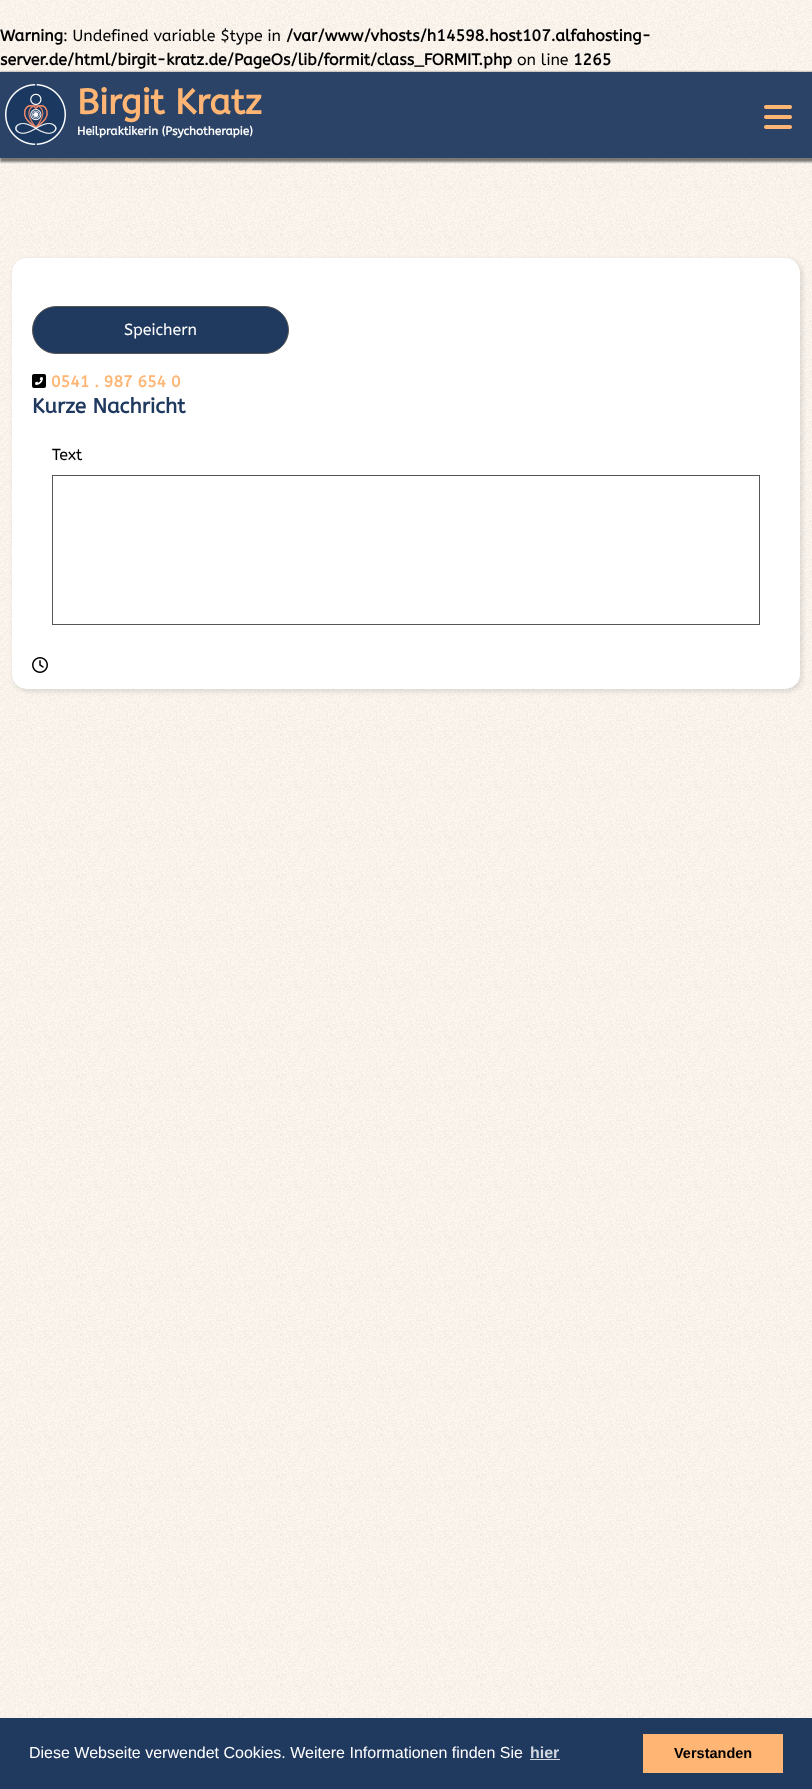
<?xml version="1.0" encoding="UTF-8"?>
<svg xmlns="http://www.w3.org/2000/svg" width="812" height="1789">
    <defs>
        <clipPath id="clip1"><path d="M 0 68 H 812 V 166 H 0 Z M 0 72 H 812 V 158 H 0 Z" clip-rule="evenodd"/></clipPath>
        <filter id="blur1" x="-50%" y="-200%" width="200%" height="500%"><feGaussianBlur stdDeviation="1"/></filter>
        <filter id="blur2" x="-50%" y="-200%" width="200%" height="500%"><feGaussianBlur stdDeviation="2"/></filter>
    </defs>
    <rect width="100%" height="100%" fill="#FFF9F1"/>
    <image x="0" y="0" width="812" height="1718" href="img_01.png"/>
    <text x="0" y="41" font-family="ABeeZee" font-size="16" font-weight="700" fill="#000000">Warning</text>
    <text x="63" y="41" font-family="ABeeZee" font-size="16" fill="#000000">: Undefined variable $type in</text>
    <text x="286" y="41" font-family="ABeeZee" font-size="16" font-weight="700" fill="#000000">/var/www/vhosts/h14598.host107.alfahosting-</text>
    <g clip-path="url(#clip1)">
        <rect x="0" y="72" width="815" height="90" fill="#000000" fill-opacity="0.5" filter="url(#blur1)"/>
    </g>
    <text x="0" y="65" font-family="ABeeZee" font-size="16" font-weight="700" fill="#000000">server.de/html/birgit-kratz.de/PageOs/lib/formit/class_FORMIT.php</text>
    <text x="517" y="65" font-family="ABeeZee" font-size="16" fill="#000000">on line</text>
    <text x="573" y="65" font-family="ABeeZee" font-size="16" font-weight="700" fill="#000000">1265</text>
    <rect x="0" y="72" width="812" height="86" fill="#20395F" fill-opacity="0.95"/>
    <image x="5" y="84" width="61" height="61" href="img_02.png"/>
    <text x="77" y="114" font-family="ABeeZee" font-size="35.25" font-weight="700" fill="#FFB574">Birgit Kratz</text>
    <text x="77" y="135" font-family="ABeeZee" font-size="11.8" font-weight="700" fill="#FFFFFF">Heilpraktikerin (Psychotherapie)</text>
    <image x="764" y="105" width="28" height="24" href="img_03.png"/>
    <rect x="13" y="259" width="790" height="433" rx="16" fill="#000000" fill-opacity="0.1" filter="url(#blur2)"/>
    <rect x="12" y="258" width="788" height="431" rx="15" fill="#FFFFFF"/>
    <rect x="32.5" y="306.5" width="256" height="47" rx="23.5" fill="#20395F" stroke="#565655"/>
    <text x="124" y="335" font-family="ABeeZee" font-size="16" fill="#FFFFFF">Speichern</text>
    <image x="32" y="374" width="14" height="14" href="img_04.png"/>
    <text x="51" y="387" font-family="ABeeZee" font-size="16" font-weight="700" fill="#FFB574">0541 . 987 654 0</text>
    <text x="32" y="413" font-family="ABeeZee" font-size="20.75" font-weight="700" fill="#20395F">Kurze Nachricht</text>
    <text x="52" y="460" font-family="ABeeZee" font-size="16" fill="#000000">Text</text>
    <rect x="52.5" y="475.5" width="707" height="149" fill="none" stroke="#565655"/>
    <image x="32" y="657" width="16" height="16" href="img_05.png"/>
    <rect x="0" y="1718" width="812" height="71" fill="#20395F"/>
    <text x="29" y="1758" font-family="Liberation Sans" font-size="16" fill="#FFFFFF">Diese Webseite verwendet Cookies. Weitere Informationen finden Sie</text>
    <text x="530" y="1758" font-family="Liberation Sans" font-size="16" font-weight="700" fill="#D2D7DF">hier</text>
    <rect x="530" y="1759" width="30" height="1" fill="#D2D7DF"/>
    <rect x="643" y="1734" width="140" height="39" fill="#FFB574"/>
    <text x="674" y="1758" font-family="Liberation Sans" font-size="14.5" font-weight="700" fill="#000000">Verstanden</text>
</svg>
